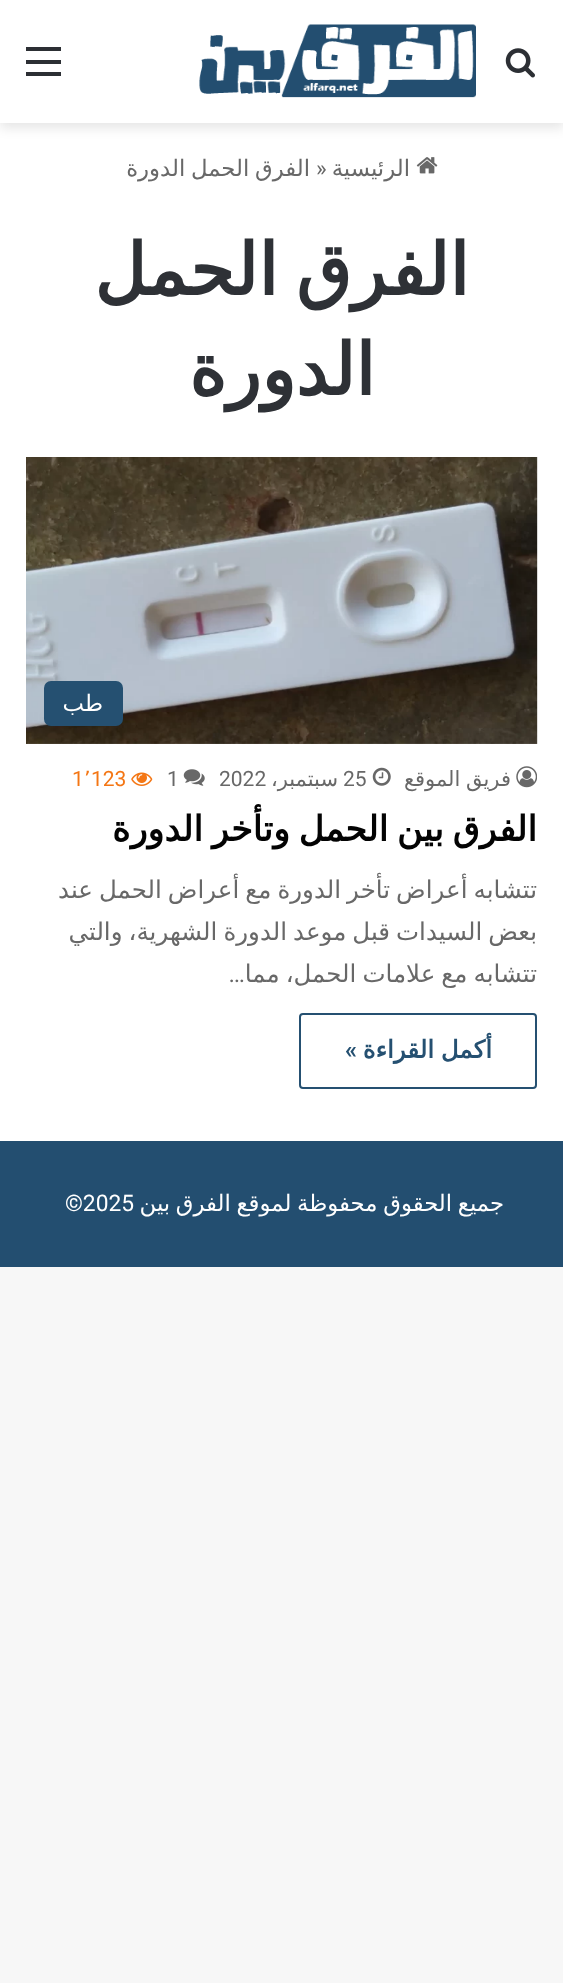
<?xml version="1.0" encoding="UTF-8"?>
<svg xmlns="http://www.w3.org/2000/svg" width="563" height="1983">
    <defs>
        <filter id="blur1" x="-50%" y="-200%" width="200%" height="500%"><feGaussianBlur stdDeviation="6"/></filter>
    </defs>
    <rect width="100%" height="100%" fill="#F7F7F7"/>
    <rect x="0" y="123" width="563" height="1018" fill="#FFFFFF"/>
    <rect x="0" y="5" width="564" height="123" fill="#000000" fill-opacity="0.1" filter="url(#blur1)"/>
    <rect x="0" y="0" width="563" height="123" fill="#FFFFFF"/>
    <image x="505" y="48" width="30" height="30" href="img_01.png"/>
    <image x="199" y="24" width="277" height="74" href="img_02.png"/>
    <rect x="26" y="60" width="35" height="4" fill="#2C2F34"/>
    <rect x="26" y="47" width="35" height="4" fill="#2C2F34"/>
    <rect x="26" y="72" width="35" height="4" fill="#2C2F34"/>
    <image x="416" y="157" width="22" height="17" href="img_03.png"/>
    <text x="410" y="176" font-family="DejaVu Sans" font-size="22.75" direction="rtl" fill="#686868">الرئيسية</text>
    <text x="316" y="176" font-family="Roboto" font-size="22.75" fill="#686868">»</text>
    <text x="310" y="176" word-spacing="-1.5" font-family="DejaVu Sans" font-size="22.75" direction="rtl" fill="#686868">الفرق الحمل الدورة</text>
    <text x="469" y="295" word-spacing="-5" font-family="DejaVu Sans" font-size="71.75" font-weight="700" direction="rtl" fill="#2E3136">الفرق الحمل</text>
    <text x="375" y="395" font-family="DejaVu Sans" font-size="71.75" font-weight="700" direction="rtl" fill="#2E3136">الدورة</text>
    <image x="26" y="457" width="512" height="287" href="img_04.png"/>
    <rect x="44" y="681" width="79" height="45" rx="7" fill="#255071"/>
    <text x="103" y="711" font-family="DejaVu Sans" font-size="22.75" direction="rtl" fill="#FFFFFF">طب</text>
    <image x="516" y="766" width="21" height="22" href="img_05.png"/>
    <text x="511" y="786" word-spacing="-1" font-family="DejaVu Sans" font-size="21" direction="rtl" fill="#686868">فريق الموقع</text>
    <image x="372" y="767" width="19" height="19" href="img_06.png"/>
    <text x="343" y="786" font-family="Roboto" font-size="21" fill="#686868">25</text>
    <text x="338" y="786" font-family="DejaVu Sans" font-size="21" direction="rtl" fill="#686868">سبتمبر،</text>
    <text x="219" y="786" font-family="Roboto" font-size="21" fill="#686868">2022</text>
    <image x="183" y="769" width="22" height="17" href="img_07.png"/>
    <text x="167" y="786" font-family="Roboto" font-size="21" fill="#686868">1</text>
    <image x="131" y="772" width="22" height="14" href="img_08.png"/>
    <text x="91" y="786" font-family="Roboto" font-size="21" fill="#F47614">123</text>
    <text x="84" y="786" font-family="DejaVu Sans" font-size="21" fill="#F47614">٬</text>
    <text x="72" y="786" font-family="Roboto" font-size="21" fill="#F47614">1</text>
    <text x="537" y="841" word-spacing="-2.5" font-family="DejaVu Sans" font-size="35" font-weight="700" direction="rtl" fill="#030303">الفرق بين الحمل وتأخر الدورة</text>
    <text font-family="DejaVu Sans" font-size="24.5" direction="rtl" fill="#686868">
        <tspan x="537" y="898" word-spacing="-1.75">تتشابه أعراض تأخر الدورة مع أعراض الحمل عند</tspan>
        <tspan x="537" y="940" word-spacing="-1.75">بعض السيدات قبل موعد الدورة الشهرية، والتي</tspan>
        <tspan x="537" y="982" word-spacing="-1.75">تتشابه مع علامات الحمل، مما</tspan>
    </text>
    <text x="245" y="982" font-family="Roboto" font-size="24.5" direction="rtl" fill="#686868">…</text>
    <rect x="300" y="1014" width="236" height="74" rx="3" fill="none" stroke="#255071" stroke-width="2"/>
    <text x="492" y="1058" word-spacing="-1" font-family="DejaVu Sans" font-size="24.5" font-weight="700" direction="rtl" fill="#255071">أكمل القراءة</text>
    <text x="357" y="1058" font-family="Roboto" font-size="24.5" font-weight="600" direction="rtl" fill="#255071">»</text>
    <rect x="0" y="1141" width="563" height="126" fill="#234E70"/>
    <text x="504" y="1211" word-spacing="-1.5" font-family="DejaVu Sans" font-size="22.75" direction="rtl" fill="#FFFFFF">جميع الحقوق محفوظة لموقع الفرق بين</text>
    <text x="65" y="1211" font-family="Roboto" font-size="22.75" fill="#FFFFFF">©2025</text>
</svg>
